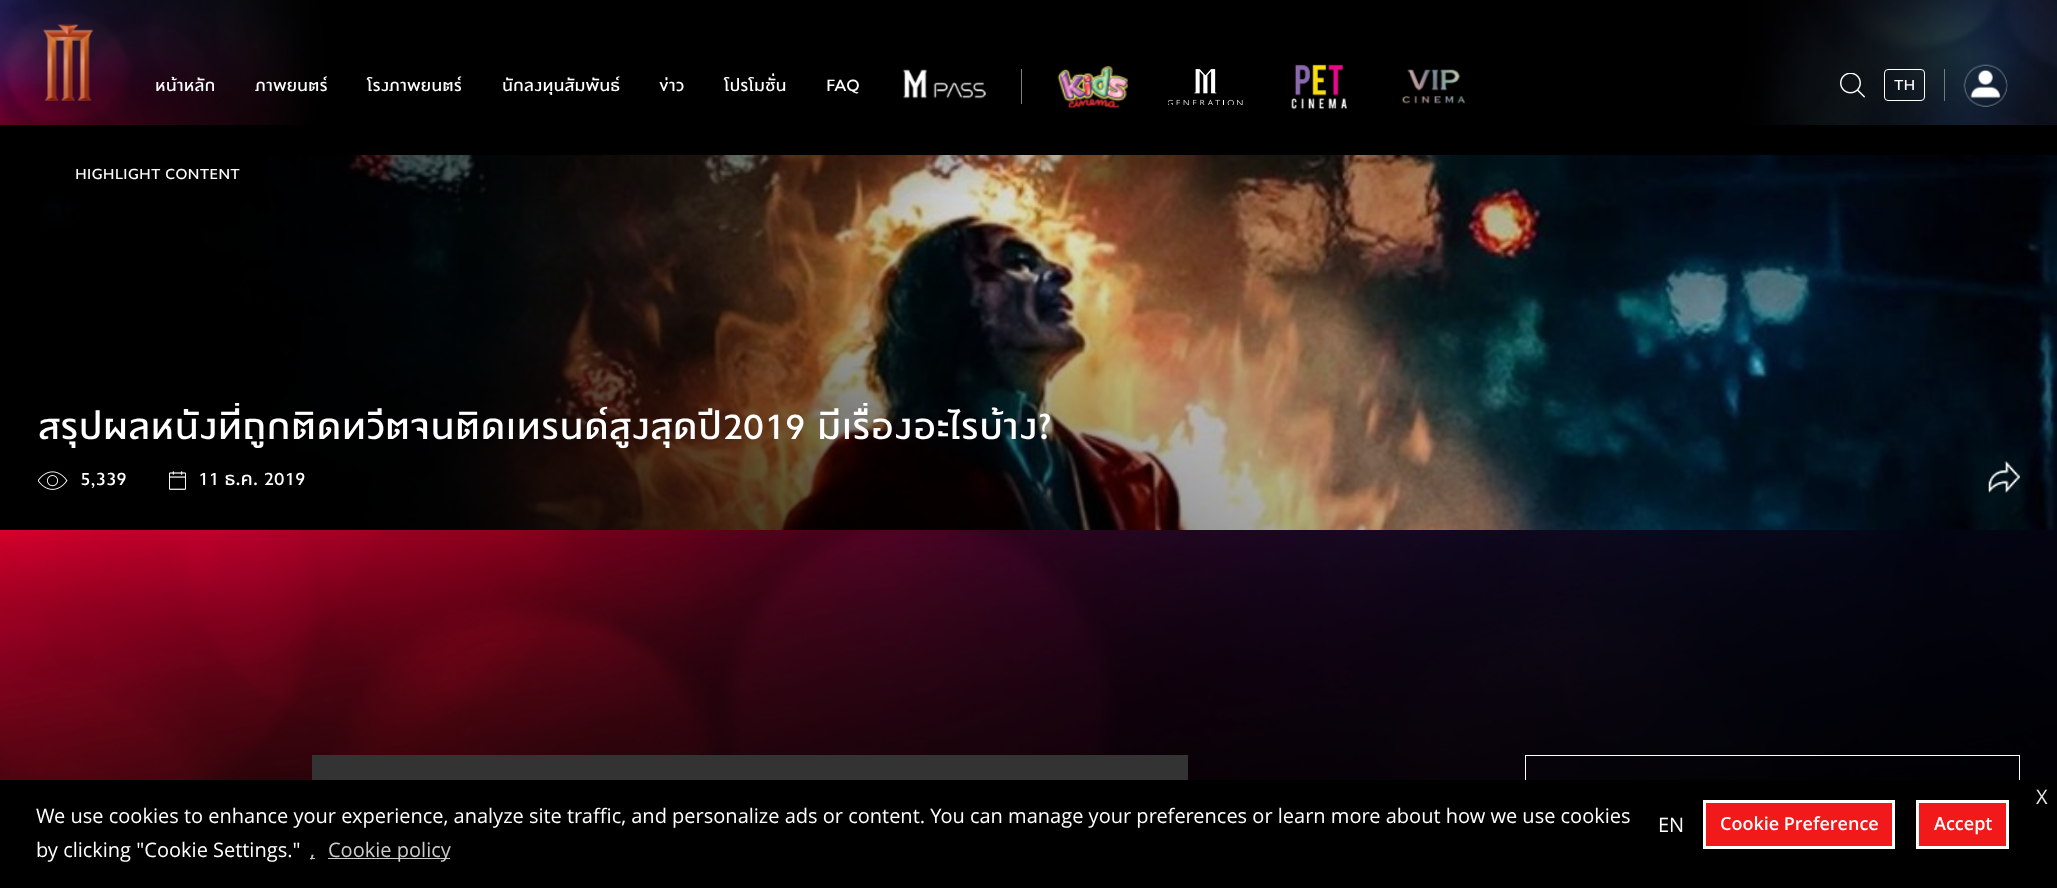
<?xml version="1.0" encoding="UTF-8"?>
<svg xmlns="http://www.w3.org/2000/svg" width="2057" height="888">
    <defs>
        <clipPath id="clip1"><rect x="38" y="403" width="1028" height="90"/></clipPath>
        <filter id="blur1" x="-50%" y="-200%" width="200%" height="500%"><feGaussianBlur stdDeviation="1"/></filter>
    </defs>
    <rect width="100%" height="100%" fill="#000000"/>
    <image x="0" y="0" width="2057" height="125" href="img_01.png"/>
    <image x="43" y="24" width="51" height="77" href="img_02.png"/>
    <text x="155" y="91" font-family="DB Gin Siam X" font-size="22.5" fill="#FFFFFF">หน้าหลัก</text>
    <text x="255" y="91" font-family="DB Gin Siam X" font-size="22.5" fill="#FFFFFF">ภาพยนตร์</text>
    <text x="367" y="91" font-family="DB Gin Siam X" font-size="22.5" fill="#FFFFFF">โรงภาพยนตร์</text>
    <text x="502" y="91" font-family="DB Gin Siam X" font-size="22.5" fill="#FFFFFF">นักลงทุนสัมพันธ์</text>
    <text x="659" y="91" font-family="DB Gin Siam X" font-size="22.5" fill="#FFFFFF">ข่าว</text>
    <text x="724" y="91" font-family="DB Gin Siam X" font-size="22.5" fill="#FFFFFF">โปรโมชั่น</text>
    <text x="826" y="91" font-family="DB Gin Siam X" font-size="22.5" fill="#FFFFFF">FAQ</text>
    <image x="902" y="69" width="85" height="30" href="img_03.png"/>
    <rect x="1021" y="69" width="1" height="35" fill="#808080"/>
    <image x="1057" y="66" width="71" height="43" href="img_04.png"/>
    <image x="1168" y="69" width="75" height="36" href="img_05.png"/>
    <image x="1291" y="64" width="56" height="46" href="img_06.png"/>
    <image x="1402" y="69" width="64" height="35" href="img_07.png"/>
    <image x="1840" y="73" width="25" height="25" href="img_08.png"/>
    <rect x="1884.5" y="69.5" width="40" height="31" rx="3.5" fill="none" stroke="#FFFFFF"/>
    <text x="1894" y="90" font-family="DB Gin Siam X" font-size="20" fill="#FFFFFF">TH</text>
    <rect x="1944" y="69" width="1" height="32" fill="#FFFFFF" fill-opacity="0.4"/>
    <image x="1963" y="64" width="45" height="43" href="img_09.png"/>
    <image x="39" y="155" width="2018" height="375" href="img_10.png"/>
    <text x="75" y="179" font-family="DB Gin Siam X" font-size="20" fill="#FFFFFF">HIGHLIGHT CONTENT</text>
    <g clip-path="url(#clip1)">
        <text x="38" y="439" font-family="DB Gin Siam X" font-size="50" fill="#FFFFFF">สรุปผลหนังที่ถูกติดทวีตจนติดเทรนด์สูงสุดปี2019 มีเรื่องอะไรบ้าง?</text>
    </g>
    <image x="38" y="471" width="30" height="19" href="img_11.png"/>
    <text x="80" y="485" font-family="DB Gin Siam X" font-size="25" fill="#FFFFFF">5,339</text>
    <image x="169" y="471" width="17" height="19" href="img_12.png"/>
    <text x="198" y="485" font-family="DB Gin Siam X" font-size="25" fill="#FFFFFF">11 ธ.ค. 2019</text>
    <image x="1988" y="461" width="32" height="32" href="img_13.png"/>
    <image x="0" y="530" width="2057" height="250" href="img_14.png"/>
    <rect x="312" y="755" width="876" height="25" fill="#333333"/>
    <rect x="1525.5" y="755.5" width="494" height="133" fill="none" stroke="#FFFFFF"/>
    <rect x="1525" y="780" width="495" height="108" fill="#000000"/>
    <text x="2036" y="804" font-family="Open Sans" font-size="20" fill="#E6E6E6">X</text>
    <text font-family="Open Sans" font-size="20" fill="#FFFFFF">
        <tspan x="36" y="823">We use cookies to enhance your experience, analyze site traffic, and personalize ads or content. You can manage your preferences or learn more about how we use cookies</tspan>
        <tspan x="36" y="857">by clicking "Cookie Settings."</tspan>
    </text>
    <rect x="310" y="858" width="5" height="1" fill="#CCCCCC"/>
    <text x="310" y="857" font-family="Open Sans" font-size="20" fill="#CCCCCC">,</text>
    <rect x="328" y="858" width="122" height="1" fill="#CCCCCC"/>
    <text x="328" y="857" font-family="Open Sans" font-size="20" fill="#CCCCCC">Cookie policy</text>
    <text x="1658" y="832" font-family="Open Sans" font-size="20" fill="#FFFFFF">EN</text>
    <rect x="1705" y="805" width="188" height="44" fill="#222632" fill-opacity="0.3" filter="url(#blur1)"/>
    <rect x="1704.5" y="801.5" width="189" height="46" fill="#F11919" stroke="#FFFFFF" stroke-width="3"/>
    <text x="1720" y="830" font-family="Open Sans" font-size="18" font-weight="600" fill="#FFFFFF">Cookie Preference</text>
    <rect x="1919" y="805" width="87" height="44" fill="#222632" fill-opacity="0.3" filter="url(#blur1)"/>
    <rect x="1917.5" y="801.5" width="90" height="46" fill="#F11919" stroke="#FFFFFF" stroke-width="3"/>
    <text x="1934" y="830" font-family="Open Sans" font-size="18" font-weight="600" fill="#FFFFFF">Accept</text>
</svg>
